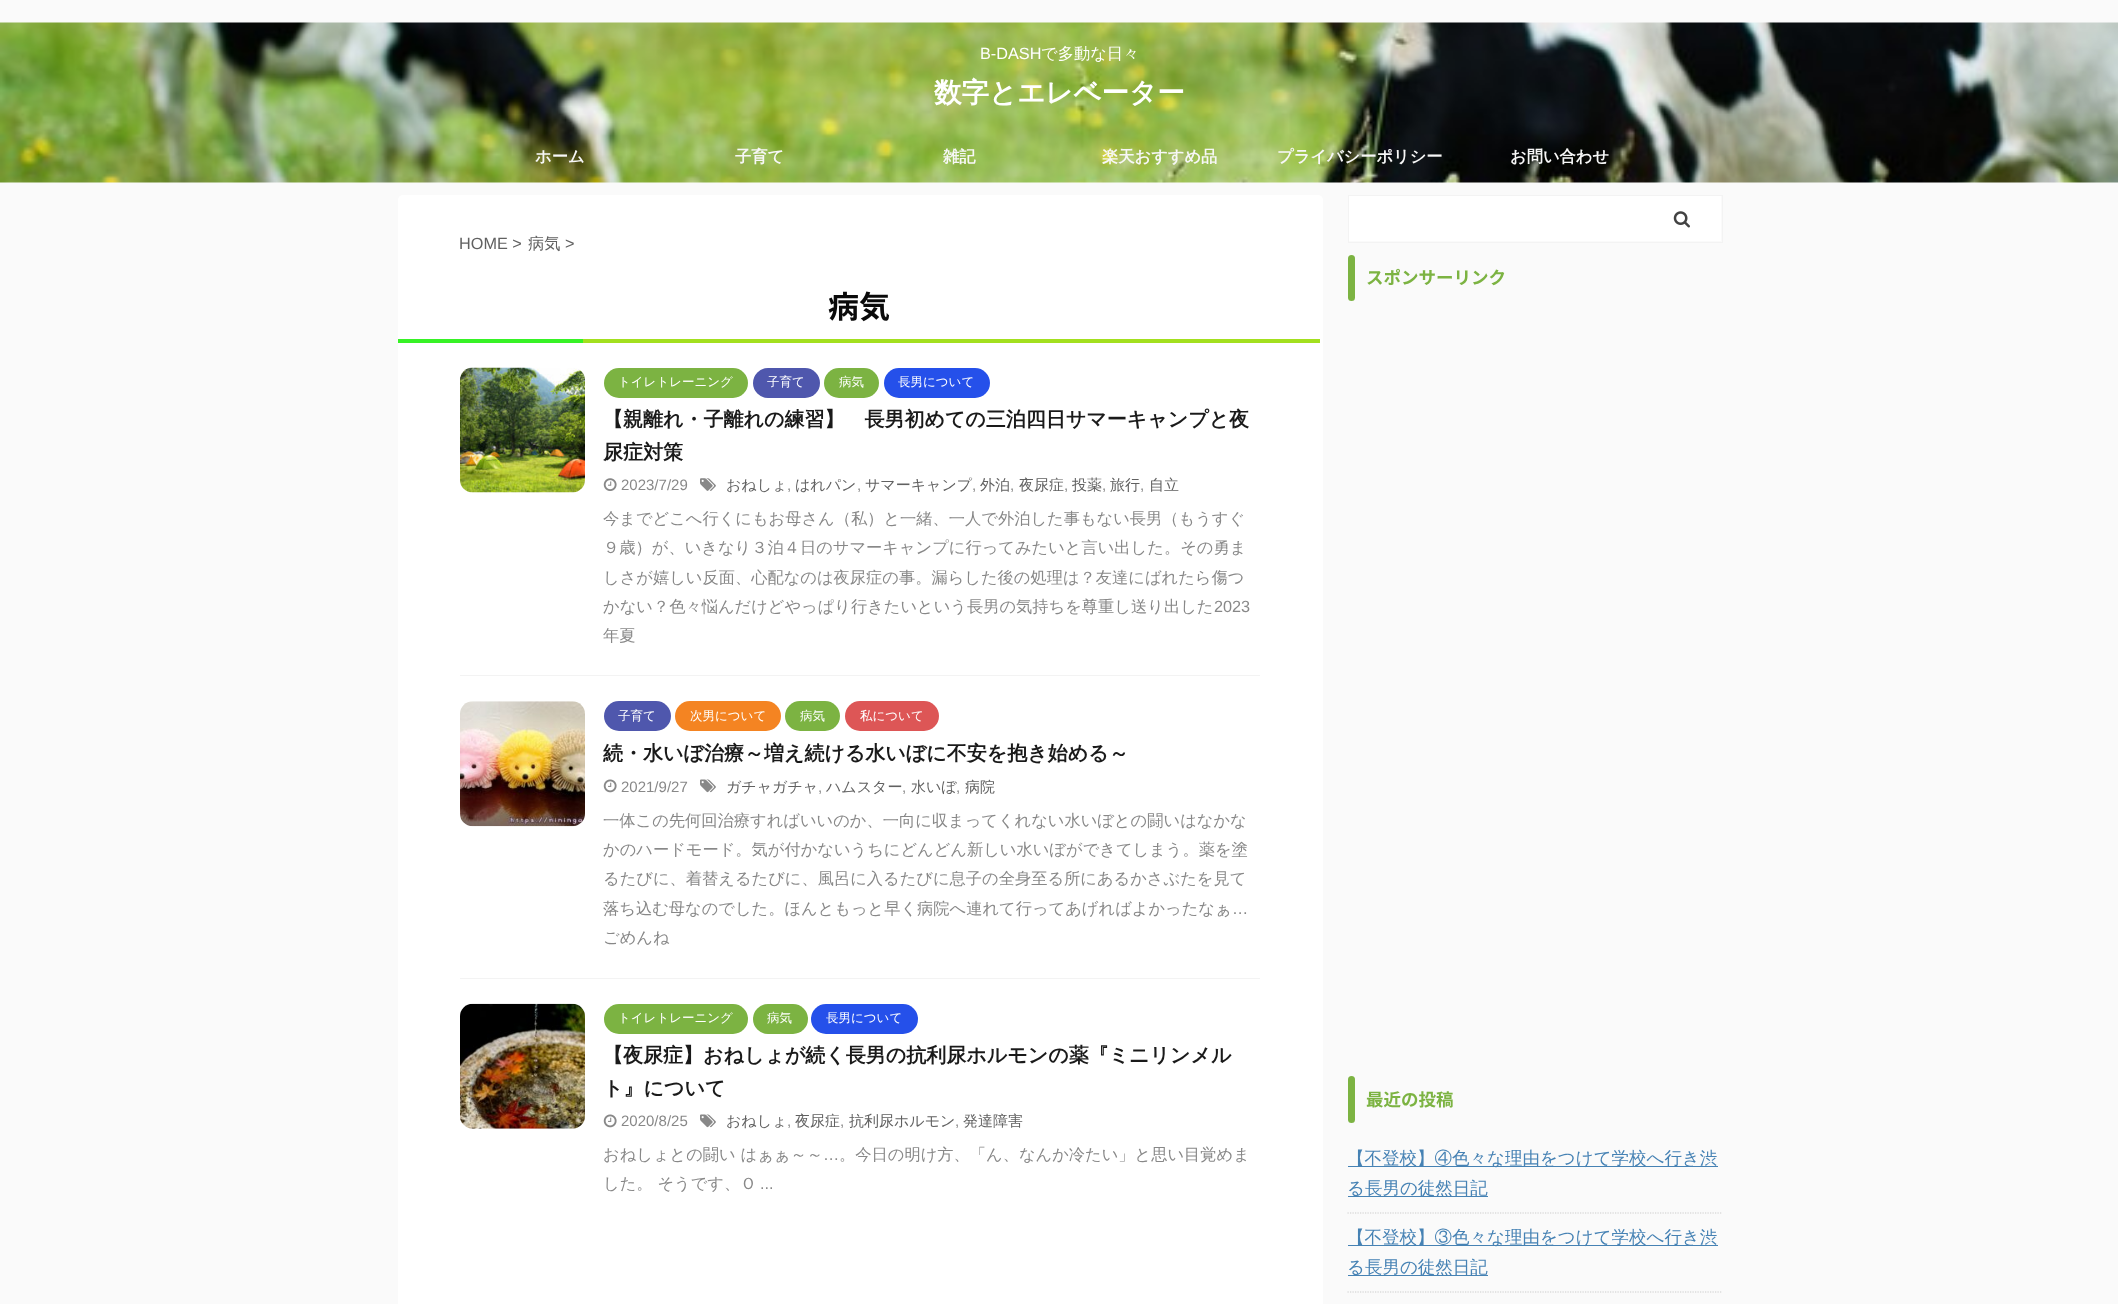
<?xml version="1.0" encoding="UTF-8"?>
<svg xmlns="http://www.w3.org/2000/svg" width="2118" height="1304">
    <rect width="100%" height="100%" fill="#FAFAFA"/>
    <image x="0" y="22" width="2118" height="161" href="img_01.png"/>
    <text x="980" y="59" font-family="Liberation Sans" font-size="16.25" fill="#FFFFFF">B-DASH</text>
    <text x="1041" y="59" font-family="WenQuanYi Zen Hei" font-size="16.25" font-weight="500" fill="#FFFFFF">で多動な日々</text>
    <text x="934" y="102" font-family="WenQuanYi Zen Hei" font-size="27.5" font-weight="700" fill="#FFFFFF">数字とエレベーター</text>
    <text x="535" y="162" font-family="WenQuanYi Zen Hei" font-size="16.25" font-weight="700" fill="#F7F7F7">ホーム</text>
    <text x="735" y="162" font-family="WenQuanYi Zen Hei" font-size="16.25" font-weight="700" fill="#F7F7F7">子育て</text>
    <text x="943" y="162" font-family="WenQuanYi Zen Hei" font-size="16.25" font-weight="700" fill="#F7F7F7">雑記</text>
    <text x="1102" y="162" font-family="WenQuanYi Zen Hei" font-size="16.25" font-weight="700" fill="#F7F7F7">楽天おすすめ品</text>
    <text x="1277" y="162" font-family="WenQuanYi Zen Hei" font-size="16.25" font-weight="700" fill="#F7F7F7">プライバシーポリシー</text>
    <text x="1510" y="162" font-family="WenQuanYi Zen Hei" font-size="16.25" font-weight="700" fill="#F7F7F7">お問い合わせ</text>
    <rect x="398" y="195" width="925" height="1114" rx="5" fill="#FFFFFF"/>
    <text x="459" y="249" font-family="Liberation Sans" font-size="16.25" fill="#616161">HOME &gt;</text>
    <text x="528" y="249" font-family="WenQuanYi Zen Hei" font-size="16.25" font-weight="500" fill="#616161">病気</text>
    <text x="565" y="249" font-family="Liberation Sans" font-size="16.25" fill="#616161">&gt;</text>
    <rect x="583" y="339" width="737" height="4" fill="#A3E01F"/>
    <text x="828" y="318" font-family="Noto Sans JP" font-size="31" font-weight="700" fill="#0A0A0A">病気</text>
    <rect x="398" y="339" width="185" height="4" fill="#37F226"/>
    <rect x="460" y="675" width="800" height="1" fill="#F3F3F3"/>
    <image x="460" y="367" width="125" height="126" href="img_02.png"/>
    <rect x="604" y="368" width="144" height="30" rx="15" fill="#7CB342"/>
    <text x="618" y="386" font-family="WenQuanYi Zen Hei" font-size="12.5" font-weight="500" fill="#FFFFFF">トイレトレーニング</text>
    <rect x="753" y="368" width="67" height="30" rx="15" fill="#4F57AD"/>
    <text x="767" y="386" font-family="WenQuanYi Zen Hei" font-size="12.5" font-weight="500" fill="#FFFFFF">子育て</text>
    <rect x="824" y="368" width="55" height="30" rx="15" fill="#7CB342"/>
    <text x="839" y="386" font-family="WenQuanYi Zen Hei" font-size="12.5" font-weight="500" fill="#FFFFFF">病気</text>
    <rect x="884" y="368" width="106" height="30" rx="15" fill="#2550EA"/>
    <text x="898" y="386" font-family="WenQuanYi Zen Hei" font-size="12.5" font-weight="500" fill="#FFFFFF">長男について</text>
    <text font-family="WenQuanYi Zen Hei" font-size="20" font-weight="700" fill="#1A1A1A">
        <tspan x="603" y="426">【親離れ・子離れの練習】　長男初めての三泊四日サマーキャンプと夜</tspan>
        <tspan x="603" y="459">尿症対策</tspan>
    </text>
    <image x="603" y="478" width="14" height="13" href="img_03.png"/>
    <text x="621" y="490" font-family="Liberation Sans" font-size="15" fill="#888888">2023/7/29</text>
    <image x="700" y="478" width="16" height="13" href="img_04.png"/>
    <text x="726" y="490" font-family="WenQuanYi Zen Hei" font-size="15" font-weight="500" fill="#616161">おねしょ</text>
    <text x="787" y="490" font-family="Liberation Sans" font-size="15" fill="#888888">,</text>
    <text x="795" y="490" font-family="WenQuanYi Zen Hei" font-size="15" font-weight="500" fill="#616161">はれパン</text>
    <text x="857" y="490" font-family="Liberation Sans" font-size="15" fill="#888888">,</text>
    <text x="865" y="490" font-family="WenQuanYi Zen Hei" font-size="15" font-weight="500" fill="#616161">サマーキャンプ</text>
    <text x="972" y="490" font-family="Liberation Sans" font-size="15" fill="#888888">,</text>
    <text x="980" y="490" font-family="WenQuanYi Zen Hei" font-size="15" font-weight="500" fill="#616161">外泊</text>
    <text x="1010" y="490" font-family="Liberation Sans" font-size="15" fill="#888888">,</text>
    <text x="1019" y="490" font-family="WenQuanYi Zen Hei" font-size="15" font-weight="500" fill="#616161">夜尿症</text>
    <text x="1064" y="490" font-family="Liberation Sans" font-size="15" fill="#888888">,</text>
    <text x="1072" y="490" font-family="WenQuanYi Zen Hei" font-size="15" font-weight="500" fill="#616161">投薬</text>
    <text x="1102" y="490" font-family="Liberation Sans" font-size="15" fill="#888888">,</text>
    <text x="1110" y="490" font-family="WenQuanYi Zen Hei" font-size="15" font-weight="500" fill="#616161">旅行</text>
    <text x="1140" y="490" font-family="Liberation Sans" font-size="15" fill="#888888">,</text>
    <text x="1149" y="490" font-family="WenQuanYi Zen Hei" font-size="15" font-weight="500" fill="#616161">自立</text>
    <text font-family="WenQuanYi Zen Hei" font-size="16.25" font-weight="500" fill="#888888">
        <tspan x="603" y="524">今までどこへ行くにもお母さん（私）と一緒、一人で外泊した事もない長男（もうすぐ</tspan>
        <tspan x="603" y="553">９歳）が、いきなり３泊４日のサマーキャンプに行ってみたいと言い出した。その勇ま</tspan>
        <tspan x="603" y="583">しさが嬉しい反面、心配なのは夜尿症の事。漏らした後の処理は？友達にばれたら傷つ</tspan>
        <tspan x="603" y="612">かない？色々悩んだけどやっぱり行きたいという長男の気持ちを尊重し送り出した</tspan>
    </text>
    <text x="1214" y="612" font-family="Liberation Sans" font-size="16.25" fill="#888888">2023</text>
    <text x="603" y="641" font-family="WenQuanYi Zen Hei" font-size="16.25" font-weight="500" fill="#888888">年夏</text>
    <rect x="460" y="978" width="800" height="1" fill="#F3F3F3"/>
    <image x="460" y="701" width="125" height="126" href="img_05.png"/>
    <rect x="604" y="701" width="67" height="30" rx="15" fill="#4F57AD"/>
    <text x="618" y="720" font-family="WenQuanYi Zen Hei" font-size="12.5" font-weight="500" fill="#FFFFFF">子育て</text>
    <rect x="675" y="701" width="106" height="30" rx="15" fill="#F48422"/>
    <text x="690" y="720" font-family="WenQuanYi Zen Hei" font-size="12.5" font-weight="500" fill="#FFFFFF">次男について</text>
    <rect x="785" y="701" width="55" height="30" rx="15" fill="#7CB342"/>
    <text x="800" y="720" font-family="WenQuanYi Zen Hei" font-size="12.5" font-weight="500" fill="#FFFFFF">病気</text>
    <rect x="845" y="701" width="94" height="30" rx="15" fill="#DD5656"/>
    <text x="860" y="720" font-family="WenQuanYi Zen Hei" font-size="12.5" font-weight="500" fill="#FFFFFF">私について</text>
    <text x="603" y="760" font-family="WenQuanYi Zen Hei" font-size="20" font-weight="700" fill="#1A1A1A">続・水いぼ治療～増え続ける水いぼに不安を抱き始める～</text>
    <image x="603" y="779" width="14" height="14" href="img_06.png"/>
    <text x="621" y="792" font-family="Liberation Sans" font-size="15" fill="#888888">2021/9/27</text>
    <image x="700" y="779" width="16" height="14" href="img_07.png"/>
    <text x="726" y="792" font-family="WenQuanYi Zen Hei" font-size="15" font-weight="500" fill="#616161">ガチャガチャ</text>
    <text x="818" y="792" font-family="Liberation Sans" font-size="15" fill="#888888">,</text>
    <text x="826" y="792" font-family="WenQuanYi Zen Hei" font-size="15" font-weight="500" fill="#616161">ハムスター</text>
    <text x="902" y="792" font-family="Liberation Sans" font-size="15" fill="#888888">,</text>
    <text x="911" y="792" font-family="WenQuanYi Zen Hei" font-size="15" font-weight="500" fill="#616161">水いぼ</text>
    <text x="956" y="792" font-family="Liberation Sans" font-size="15" fill="#888888">,</text>
    <text x="965" y="792" font-family="WenQuanYi Zen Hei" font-size="15" font-weight="500" fill="#616161">病院</text>
    <text font-family="WenQuanYi Zen Hei" font-size="16.25" font-weight="500" fill="#888888">
        <tspan x="603" y="826">一体この先何回治療すればいいのか、一向に収まってくれない水いぼとの闘いはなかな</tspan>
        <tspan x="603" y="855">かのハードモード。気が付かないうちにどんどん新しい水いぼができてしまう。薬を塗</tspan>
        <tspan x="603" y="884">るたびに、着替えるたびに、風呂に入るたびに息子の全身至る所にあるかさぶたを見て</tspan>
        <tspan x="603" y="914">落ち込む母なのでした。ほんともっと早く病院へ連れて行ってあげればよかったなぁ</tspan>
    </text>
    <text x="1232" y="914" font-family="Liberation Sans" font-size="16.25" fill="#888888">…</text>
    <text x="603" y="943" font-family="WenQuanYi Zen Hei" font-size="16.25" font-weight="500" fill="#888888">ごめんね</text>
    <image x="460" y="1003" width="125" height="126" href="img_08.png"/>
    <rect x="604" y="1004" width="144" height="30" rx="15" fill="#7CB342"/>
    <text x="618" y="1022" font-family="WenQuanYi Zen Hei" font-size="12.5" font-weight="500" fill="#FFFFFF">トイレトレーニング</text>
    <rect x="753" y="1004" width="55" height="30" rx="15" fill="#7CB342"/>
    <text x="767" y="1022" font-family="WenQuanYi Zen Hei" font-size="12.5" font-weight="500" fill="#FFFFFF">病気</text>
    <rect x="811" y="1004" width="107" height="30" rx="15" fill="#2550EA"/>
    <text x="826" y="1022" font-family="WenQuanYi Zen Hei" font-size="12.5" font-weight="500" fill="#FFFFFF">長男について</text>
    <text font-family="WenQuanYi Zen Hei" font-size="20" font-weight="700" fill="#1A1A1A">
        <tspan x="603" y="1062">【夜尿症】おねしょが続く長男の抗利尿ホルモンの薬『ミニリンメル</tspan>
        <tspan x="603" y="1095">ト』について</tspan>
    </text>
    <image x="603" y="1114" width="14" height="14" href="img_06.png"/>
    <text x="621" y="1126" font-family="Liberation Sans" font-size="15" fill="#888888">2020/8/25</text>
    <image x="700" y="1114" width="16" height="14" href="img_07.png"/>
    <text x="726" y="1126" font-family="WenQuanYi Zen Hei" font-size="15" font-weight="500" fill="#616161">おねしょ</text>
    <text x="787" y="1126" font-family="Liberation Sans" font-size="15" fill="#888888">,</text>
    <text x="795" y="1126" font-family="WenQuanYi Zen Hei" font-size="15" font-weight="500" fill="#616161">夜尿症</text>
    <text x="840" y="1126" font-family="Liberation Sans" font-size="15" fill="#888888">,</text>
    <text x="849" y="1126" font-family="WenQuanYi Zen Hei" font-size="15" font-weight="500" fill="#616161">抗利尿ホルモン</text>
    <text x="955" y="1126" font-family="Liberation Sans" font-size="15" fill="#888888">,</text>
    <text x="963" y="1126" font-family="WenQuanYi Zen Hei" font-size="15" font-weight="500" fill="#616161">発達障害</text>
    <text x="603" y="1160" font-family="WenQuanYi Zen Hei" font-size="16.25" font-weight="500" fill="#888888">おねしょとの闘い はぁぁ～～</text>
    <text x="823" y="1160" font-family="Liberation Sans" font-size="16.25" fill="#888888">…</text>
    <text x="839" y="1160" font-family="WenQuanYi Zen Hei" font-size="16.25" font-weight="500" fill="#888888">。今日の明け方、「ん、なんか冷たい」と思い目覚めま</text>
    <text x="603" y="1189" font-family="WenQuanYi Zen Hei" font-size="16.25" font-weight="500" fill="#888888">した。 そうです、Ｏ</text>
    <text x="760" y="1189" font-family="Liberation Sans" font-size="16.25" fill="#888888">...</text>
    <rect x="1348.5" y="195.5" width="374" height="47" fill="none" stroke="#F3F3F3"/>
    <rect x="1349" y="196" width="372" height="45" fill="#FFFFFF"/>
    <image x="1673" y="211" width="17" height="17" href="img_09.png"/>
    <rect x="1348" y="255" width="7" height="46" rx="3.5" fill="#7CB342"/>
    <text x="1366" y="284" font-family="Noto Sans JP" font-size="17.5" font-weight="700" fill="#7CB342">スポンサーリンク</text>
    <rect x="1348" y="1076" width="7" height="47" rx="3.5" fill="#7CB342"/>
    <text x="1366" y="1106" font-family="Noto Sans JP" font-size="17.5" font-weight="700" fill="#7CB342">最近の投稿</text>
    <path d="M 1347.5 1213 H 1722.5" fill="none" stroke="#CCCCCC" stroke-width="1.2" stroke-dasharray="1.25 1.25"/>
    <rect x="1348" y="1166" width="370" height="1" fill="#4682B4"/>
    <text x="1347" y="1164" font-family="WenQuanYi Zen Hei" font-size="17.5" font-weight="500" fill="#4682B4">【不登校】④色々な理由をつけて学校へ行き渋</text>
    <rect x="1348" y="1196" width="140" height="1" fill="#4682B4"/>
    <text x="1347" y="1194" font-family="WenQuanYi Zen Hei" font-size="17.5" font-weight="500" fill="#4682B4">る長男の徒然日記</text>
    <path d="M 1347.5 1292 H 1722.5" fill="none" stroke="#CCCCCC" stroke-width="1.2" stroke-dasharray="1.25 1.25"/>
    <rect x="1348" y="1245" width="370" height="1" fill="#4682B4"/>
    <text x="1347" y="1243" font-family="WenQuanYi Zen Hei" font-size="17.5" font-weight="500" fill="#4682B4">【不登校】③色々な理由をつけて学校へ行き渋</text>
    <rect x="1348" y="1275" width="140" height="1" fill="#4682B4"/>
    <text x="1347" y="1273" font-family="WenQuanYi Zen Hei" font-size="17.5" font-weight="500" fill="#4682B4">る長男の徒然日記</text>
</svg>
